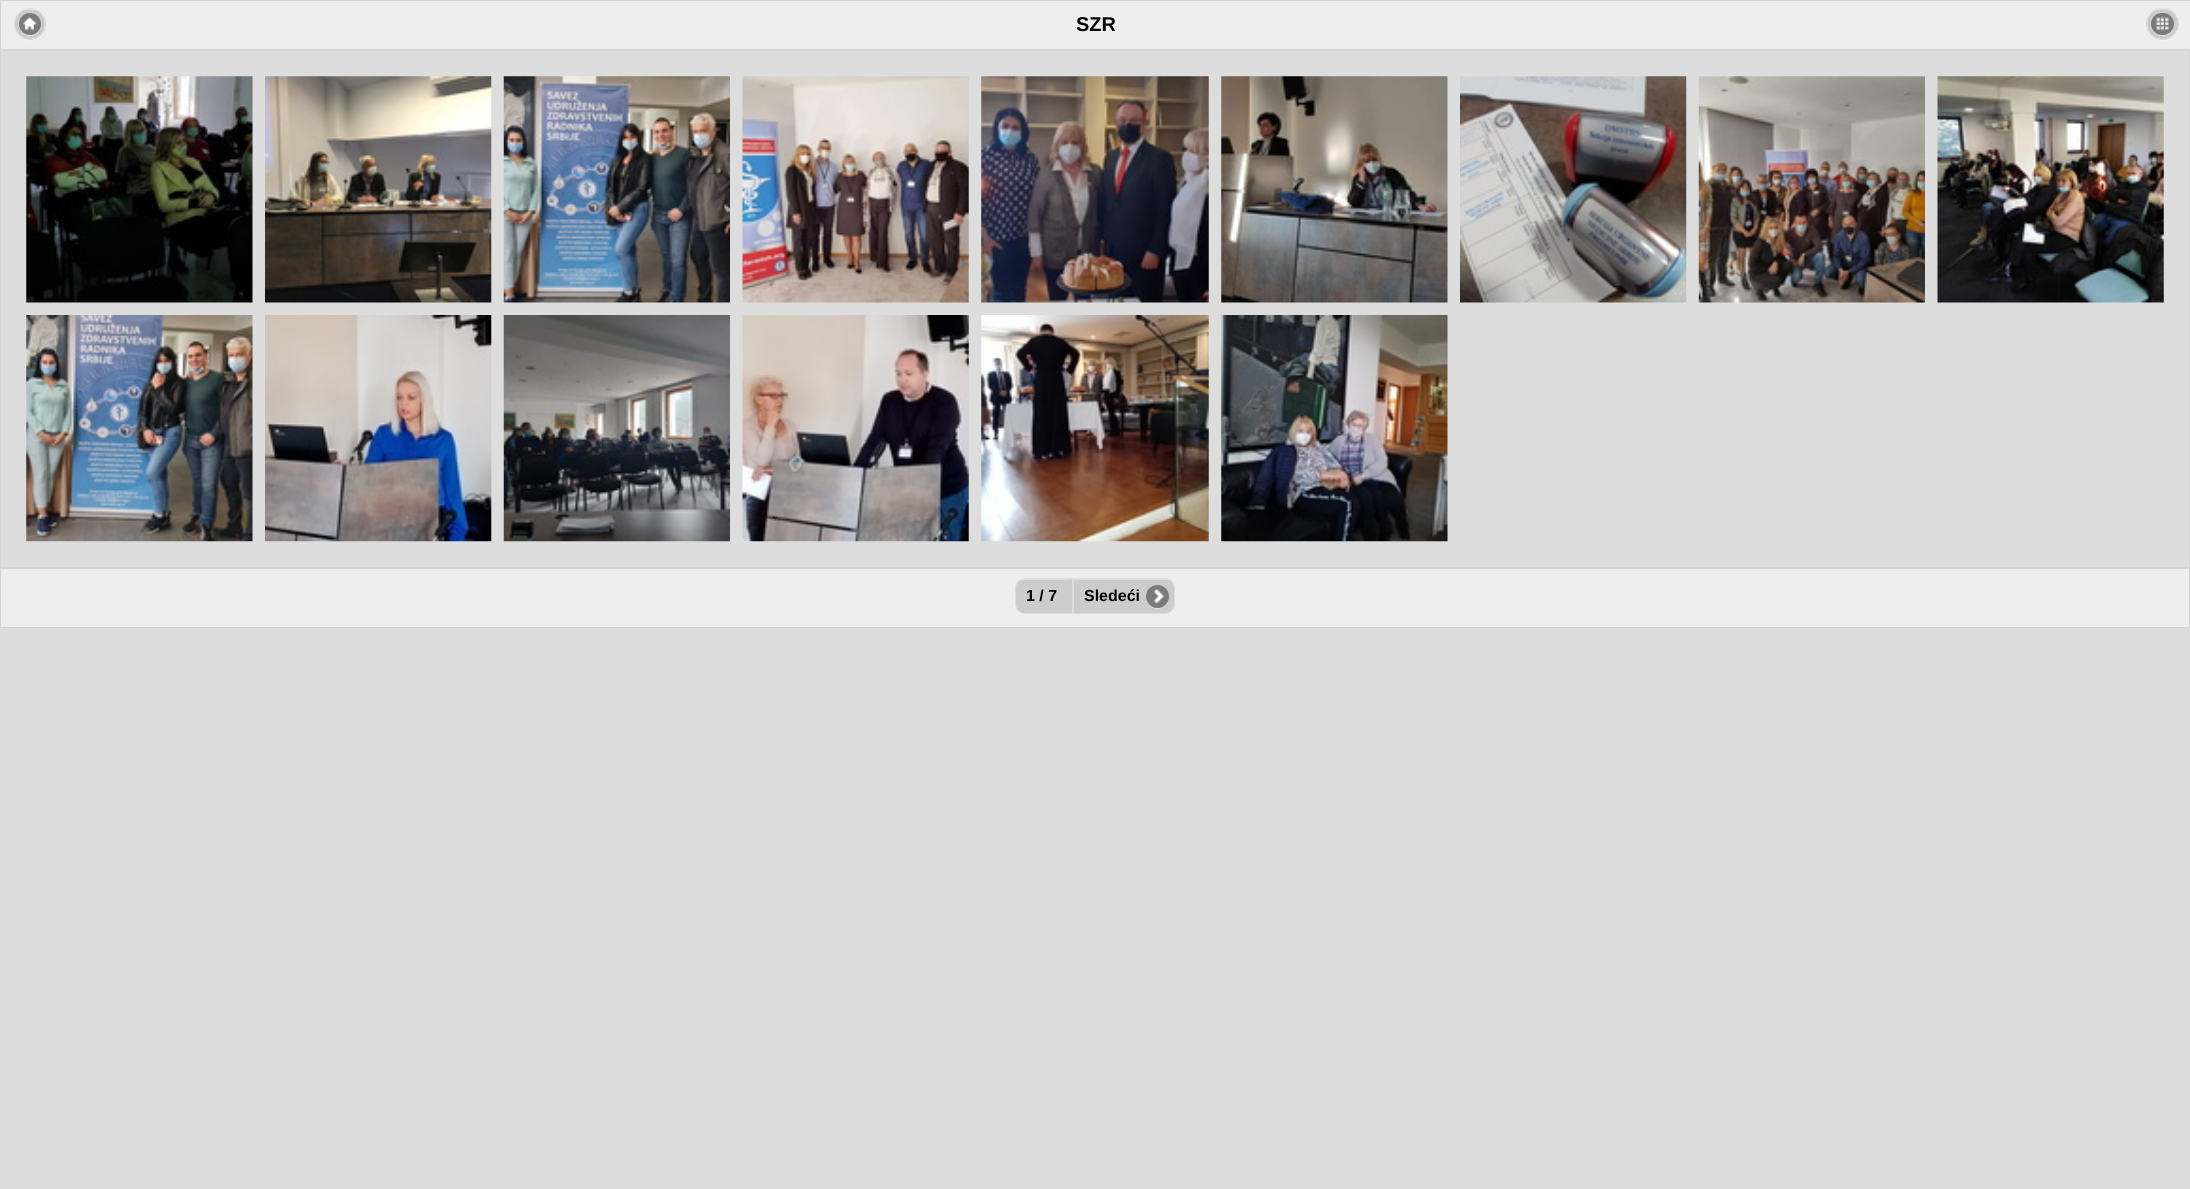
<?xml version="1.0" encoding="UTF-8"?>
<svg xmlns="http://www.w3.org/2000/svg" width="2190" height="1189">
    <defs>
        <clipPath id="clip1"><rect x="2148" y="9" width="30" height="30" rx="15"/></clipPath>
    </defs>
    <rect width="100%" height="100%" fill="#DDDDDD"/>
    <rect x="0.5" y="0.5" width="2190" height="49" fill="#EEEEEE" stroke="#D5D5D5"/>
    <path d="M 46 27.5 C 42 44 18 44 14 27.5 C 17 45 43 45 46 27.5 Z" fill="#F3F3F3"/>
    <circle cx="30" cy="24" r="15.5" fill="#CCCCCC" stroke="#DDDDDD"/>
    <rect x="23" y="9" width="15" height="1" fill="#FFFFFF" fill-opacity="0.3"/>
    <path d="M 19 26.5 C 21 39 39 39 41 26.5 C 38 37.5 22 37.5 19 26.5 Z" fill="#E0E0E0"/>
    <circle cx="30" cy="24" r="11" fill="#000000" fill-opacity="0.4"/>
    <image x="22" y="17" width="16" height="14" href="img_01.png"/>
    <text x="1076" y="31" font-family="Liberation Sans" font-size="20" font-weight="700" fill="#000000">SZR</text>
    <path d="M 2146.5 21.5 C 2142.5 38.5 2166.5 48.5 2176.5 34 C 2179 30.5 2179.5 25.5 2178.5 21.5 C 2179 25.5 2178 29.5 2176 33 C 2166.5 47 2144 38 2146.5 21.5 Z" fill="#F3F3F3"/>
    <rect x="2146.5" y="8.5" width="32" height="31" rx="15.5" fill="#CCCCCC" stroke="#DDDDDD"/>
    <g clip-path="url(#clip1)">
        <rect x="2155" y="9" width="15" height="1" fill="#FFFFFF" fill-opacity="0.3"/>
    </g>
    <path d="M 2151.5 22 C 2148 35.5 2168 42 2173 29.5 C 2174 27 2174.5 24.5 2173.5 22 C 2175 34 2160 40 2153 30 C 2151.5 28 2151 25 2151.5 22 Z" fill="#E0E0E0"/>
    <rect x="2151" y="13" width="23" height="22" rx="11" fill="#000000" fill-opacity="0.4"/>
    <image x="2156" y="17" width="13" height="14" href="img_02.png"/>
    <rect x="0.5" y="50.5" width="2189" height="517" fill="none" stroke="#D5D5D5"/>
    <image x="26" y="76" width="227" height="227" href="img_03.png"/>
    <image x="265" y="76" width="227" height="227" href="img_04.png"/>
    <image x="503" y="76" width="227" height="227" href="img_05.png"/>
    <image x="742" y="76" width="227" height="227" href="img_06.png"/>
    <image x="981" y="76" width="228" height="227" href="img_07.png"/>
    <image x="1221" y="76" width="227" height="227" href="img_08.png"/>
    <image x="1460" y="76" width="227" height="227" href="img_09.png"/>
    <image x="1698" y="76" width="227" height="227" href="img_10.png"/>
    <image x="1937" y="76" width="227" height="227" href="img_11.png"/>
    <image x="26" y="315" width="227" height="227" href="img_12.png"/>
    <image x="265" y="315" width="227" height="227" href="img_13.png"/>
    <image x="503" y="315" width="227" height="227" href="img_14.png"/>
    <image x="742" y="315" width="227" height="227" href="img_15.png"/>
    <image x="981" y="315" width="228" height="227" href="img_16.png"/>
    <image x="1221" y="315" width="227" height="227" href="img_17.png"/>
    <rect x="0.5" y="568.5" width="2189" height="59" fill="#EEEEEE" stroke="#D5D5D5"/>
    <path d="M 1025 578.5 H 1072.5 V 613.5 H 1025 C 1020 613.5 1015.5 609 1015.5 604 V 588 C 1015.5 583 1020 578.5 1025 578.5 Z" fill="#CCCCCC" stroke="#DDDDDD"/>
    <rect x="1021" y="579" width="50" height="1" fill="#FFFFFF" fill-opacity="0.3"/>
    <text x="1026" y="601" font-family="Liberation Sans" font-size="16" font-weight="700" fill="#000000">1 / 7</text>
    <path d="M 1073.5 578.5 H 1165 C 1170 578.5 1174.5 583 1174.5 588 V 604 C 1174.5 609 1170 613.5 1165 613.5 H 1073.5 Z" fill="#CCCCCC" stroke="#DDDDDD"/>
    <rect x="1074" y="579" width="95" height="1" fill="#FFFFFF" fill-opacity="0.3"/>
    <text x="1084" y="601" font-family="Liberation Sans" font-size="16" font-weight="700" fill="#000000">Sledeći</text>
    <path d="M 1146.5 594.5 C 1145.5 597 1146 599.5 1147 602 C 1152.5 615 1172 608 1168.5 594.5 C 1169 597.5 1168.5 600 1167 602.5 C 1160 612.5 1144.5 606 1146.5 594.5 Z" fill="#E0E0E0"/>
    <circle cx="1157.5" cy="596.5" r="11.5" fill="#000000" fill-opacity="0.4"/>
    <image x="1153" y="588" width="11" height="16" href="img_18.png"/>
</svg>
